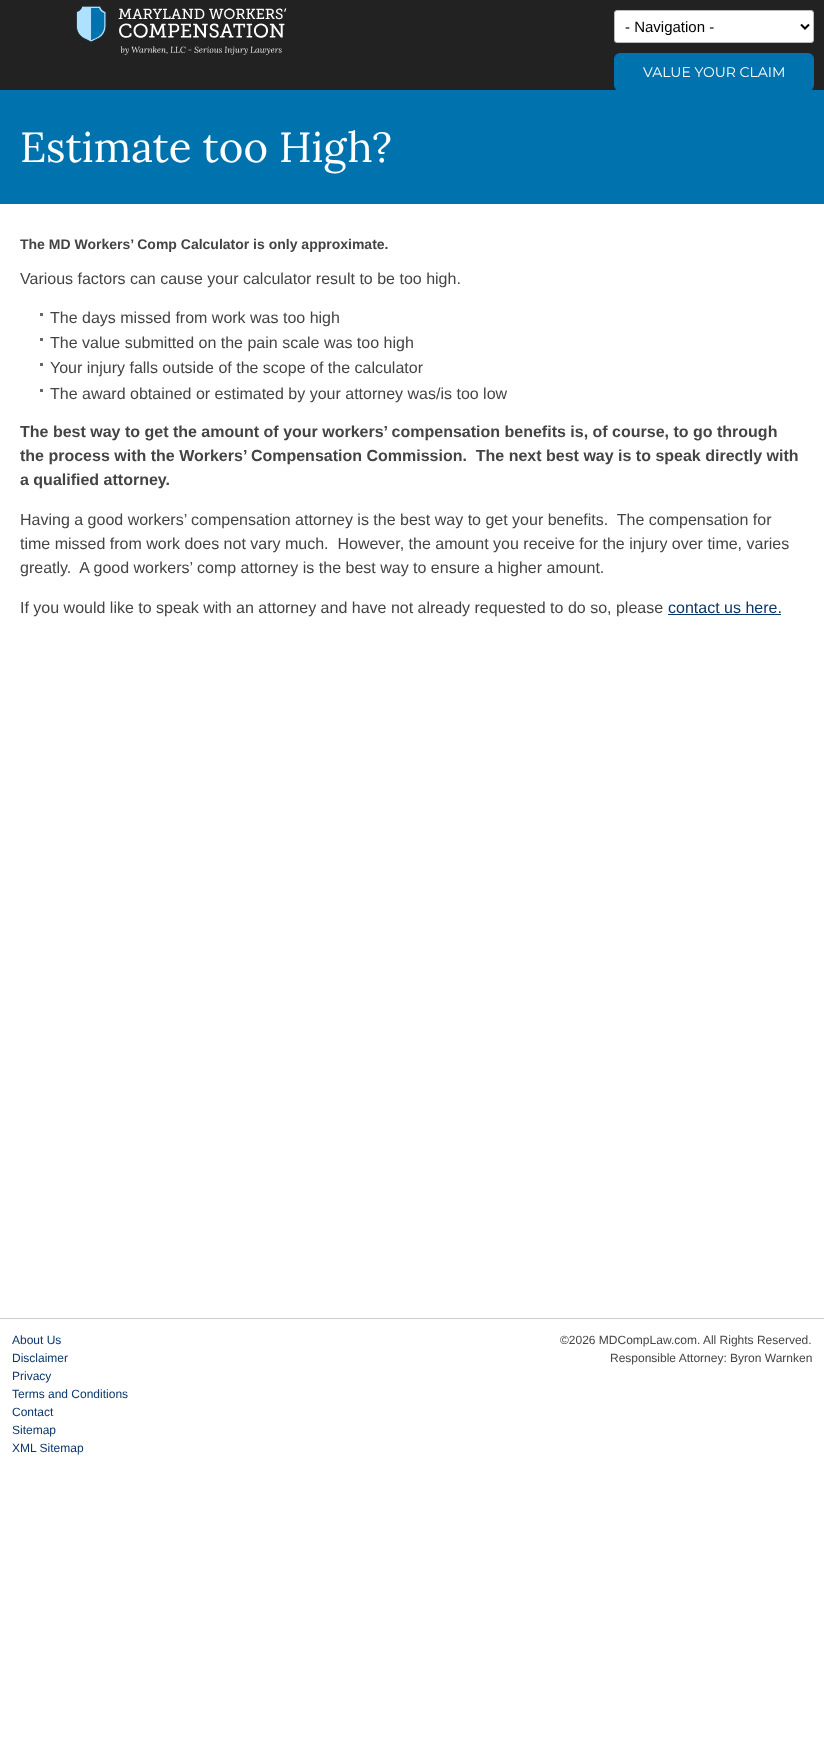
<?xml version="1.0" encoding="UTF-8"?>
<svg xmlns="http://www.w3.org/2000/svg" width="824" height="1743">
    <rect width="100%" height="100%" fill="#FFFFFF"/>
    <rect x="0" y="0" width="824" height="90" fill="#222222"/>
    <image x="76" y="5" width="211" height="50" href="img_01.png"/>
    <rect x="614.5" y="10.5" width="199" height="32" rx="2.5" fill="#FFFFFF" stroke="#BBBBBB"/>
    <path d="M 801 24.5 L 805 28.5 L 809 24.5" fill="none" stroke="#000000" stroke-width="2"/>
    <text x="625" y="32" font-family="Liberation Sans" font-size="15" fill="#000000">- Navigation -</text>
    <rect x="0" y="90" width="824" height="114" fill="#0073AF"/>
    <rect x="614" y="53" width="200" height="38" rx="6" fill="#0073AF"/>
    <text x="643" y="77" font-family="Montserrat" font-size="14" fill="#FFFFFF">VALUE YOUR CLAIM</text>
    <text x="20" y="162" font-family="Lora" font-size="42" fill="#FFFFFF">Estimate too High?</text>
    <text x="20" y="249" font-family="Liberation Sans" font-size="14" font-weight="700" fill="#444444">The MD Workers’ Comp Calculator is only approximate.</text>
    <text x="20" y="284" font-family="Liberation Sans" font-size="16" fill="#444444">Various factors can cause your calculator result to be too high.</text>
    <rect x="40" y="313" width="3" height="3" fill="#666666"/>
    <text x="50" y="323" font-family="Liberation Sans" font-size="16" fill="#444444">The days missed from work was too high</text>
    <rect x="40" y="338" width="3" height="3" fill="#666666"/>
    <text x="50" y="348" font-family="Liberation Sans" font-size="16" fill="#444444">The value submitted on the pain scale was too high</text>
    <rect x="40" y="363" width="3" height="3" fill="#666666"/>
    <text x="50" y="373" font-family="Liberation Sans" font-size="16" fill="#444444">Your injury falls outside of the scope of the calculator</text>
    <rect x="40" y="389" width="3" height="3" fill="#666666"/>
    <text x="50" y="399" font-family="Liberation Sans" font-size="16" fill="#444444">The award obtained or estimated by your attorney was/is too low</text>
    <text font-family="Liberation Sans" font-size="16" font-weight="700" fill="#444444" xml:space="preserve"><tspan x="20" y="437">The best way to get the amount of your workers’ compensation benefits is, of course, to go through</tspan><tspan x="20" y="461">the process with the Workers’ Compensation Commission.  The next best way is to speak directly with</tspan><tspan x="20" y="485">a qualified attorney.</tspan></text>
    <text font-family="Liberation Sans" font-size="16" fill="#444444" xml:space="preserve"><tspan x="20" y="525">Having a good workers’ compensation attorney is the best way to get your benefits.  The compensation for</tspan><tspan x="20" y="549">time missed from work does not vary much.  However, the amount you receive for the injury over time, varies</tspan><tspan x="20" y="573">greatly.  A good workers’ comp attorney is the best way to ensure a higher amount.</tspan></text>
    <text x="20" y="613" font-family="Liberation Sans" font-size="16" fill="#444444">If you would like to speak with an attorney and have not already requested to do so, please</text>
    <text x="668" y="613" font-family="Liberation Sans" font-size="16" fill="#0B366B">contact us here.</text>
    <rect x="668" y="614" width="113" height="1" fill="#0B366B"/>
    <rect x="0" y="1318" width="824" height="1" fill="#CCCCCC"/>
    <text font-family="Liberation Sans" font-size="12" fill="#0B366B">
        <tspan x="12" y="1344">About Us</tspan>
        <tspan x="12" y="1362">Disclaimer</tspan>
        <tspan x="12" y="1380">Privacy</tspan>
        <tspan x="12" y="1398">Terms and Conditions</tspan>
        <tspan x="12" y="1416">Contact</tspan>
        <tspan x="12" y="1434">Sitemap</tspan>
        <tspan x="12" y="1452">XML Sitemap</tspan>
    </text>
    <text x="560" y="1344" font-family="Liberation Sans" font-size="12" fill="#444444">©2026 MDCompLaw.com. All Rights Reserved.</text>
    <text x="610" y="1362" font-family="Liberation Sans" font-size="12" fill="#444444">Responsible Attorney: Byron Warnken</text>
</svg>
